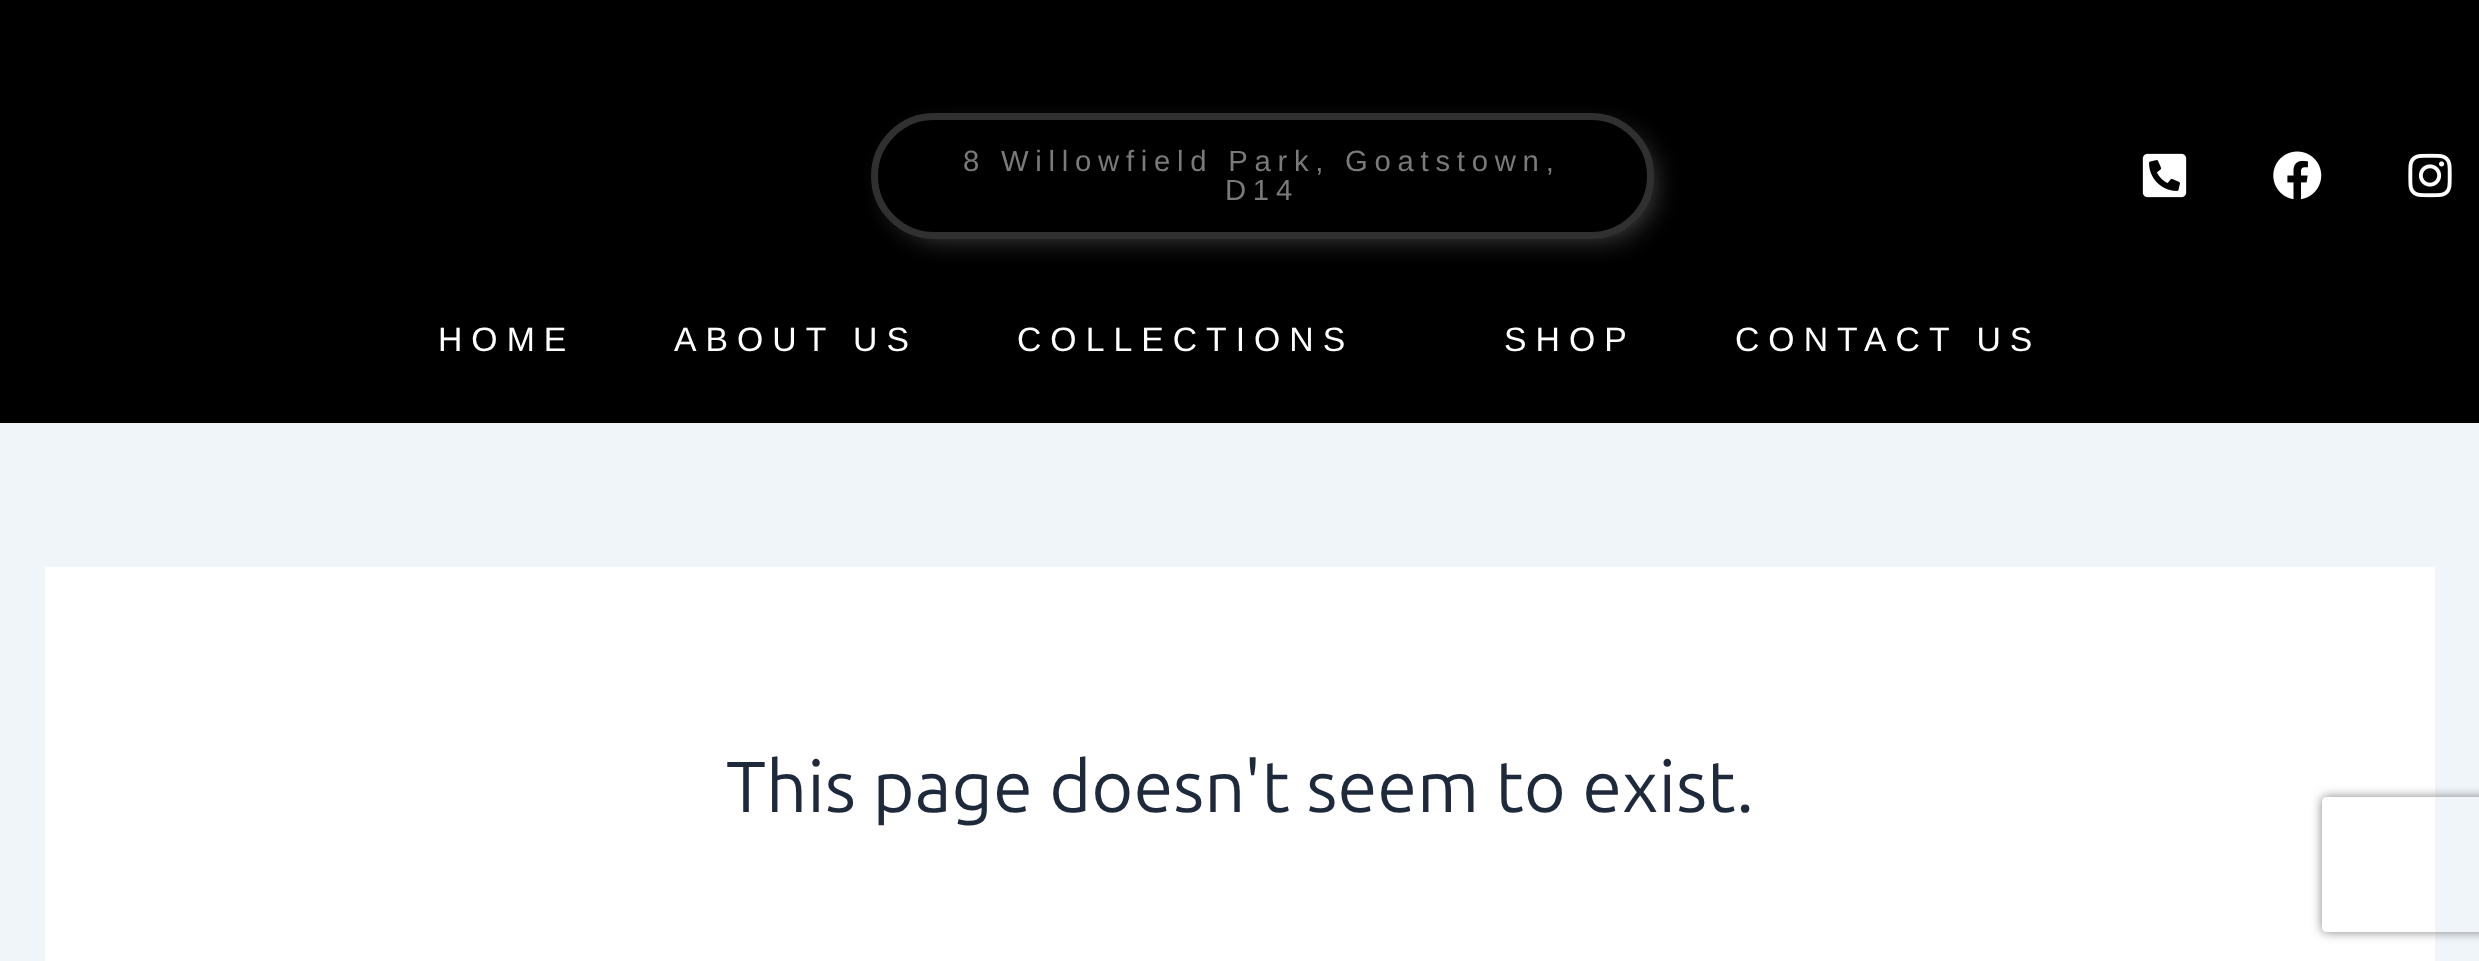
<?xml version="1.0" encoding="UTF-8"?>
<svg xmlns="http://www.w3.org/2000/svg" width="2479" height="961">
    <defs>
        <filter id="blur1" x="-50%" y="-200%" width="200%" height="500%"><feGaussianBlur stdDeviation="14.5"/></filter>
        <clipPath id="clip1"><path d="M 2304 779 H 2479 V 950 H 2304 Z M 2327 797 H 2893 C 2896 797 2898 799 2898 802 V 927 C 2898 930 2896 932 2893 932 H 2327 C 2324 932 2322 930 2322 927 V 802 C 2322 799 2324 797 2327 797 Z" clip-rule="evenodd"/></clipPath>
        <filter id="blur2" x="-50%" y="-200%" width="200%" height="500%"><feGaussianBlur stdDeviation="5.5"/></filter>
    </defs>
    <rect width="100%" height="100%" fill="#F0F5FA"/>
    <rect x="0" y="0" width="2479" height="266" fill="#000000"/>
    <rect x="891" y="133" width="761" height="103" rx="51.5" fill="#9F9F9F" fill-opacity="0.5" filter="url(#blur1)"/>
    <rect x="871" y="113" width="783" height="126" rx="63" fill="#000000"/>
    <rect x="874.5" y="116.5" width="776" height="119" rx="59.5" fill="none" stroke="#FFFFFF" stroke-opacity="0.19" stroke-width="7"/>
    <text x="963" y="171" font-family="Liberation Sans" font-size="29.25" letter-spacing="6.75" fill="#7A7A7A">8 Willowfield Park, Goatstown,</text>
    <text x="1225" y="200" font-family="Liberation Sans" font-size="29.25" letter-spacing="6.75" fill="#7A7A7A">D14</text>
    <image x="2142" y="153" width="45" height="45" href="img_01.png"/>
    <image x="2273" y="151" width="49" height="49" href="img_02.png"/>
    <image x="2408" y="153" width="44" height="45" href="img_03.png"/>
    <rect x="0" y="266" width="2479" height="157" fill="#000000"/>
    <text x="438" y="351" font-family="Liberation Sans" font-size="33.75" letter-spacing="9" fill="#FFFFFF">HOME</text>
    <text x="674" y="351" font-family="Liberation Sans" font-size="33.75" letter-spacing="9" fill="#FFFFFF">ABOUT US</text>
    <text x="1017" y="351" font-family="Liberation Sans" font-size="33.75" letter-spacing="9" fill="#FFFFFF">COLLECTIONS</text>
    <text x="1504" y="351" font-family="Liberation Sans" font-size="33.75" letter-spacing="9" fill="#FFFFFF">SHOP</text>
    <text x="1735" y="351" font-family="Liberation Sans" font-size="33.75" letter-spacing="9" fill="#FFFFFF">CONTACT US</text>
    <rect x="45" y="567" width="2390" height="394" fill="#FFFFFF"/>
    <text x="726" y="812" font-family="Ubuntu" font-size="72" fill="#1E293B">This page doesn't seem to exist.</text>
    <g clip-path="url(#clip1)">
        <rect x="2322" y="797" width="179" height="135" rx="5" fill="#808080" filter="url(#blur2)"/>
    </g>
</svg>
